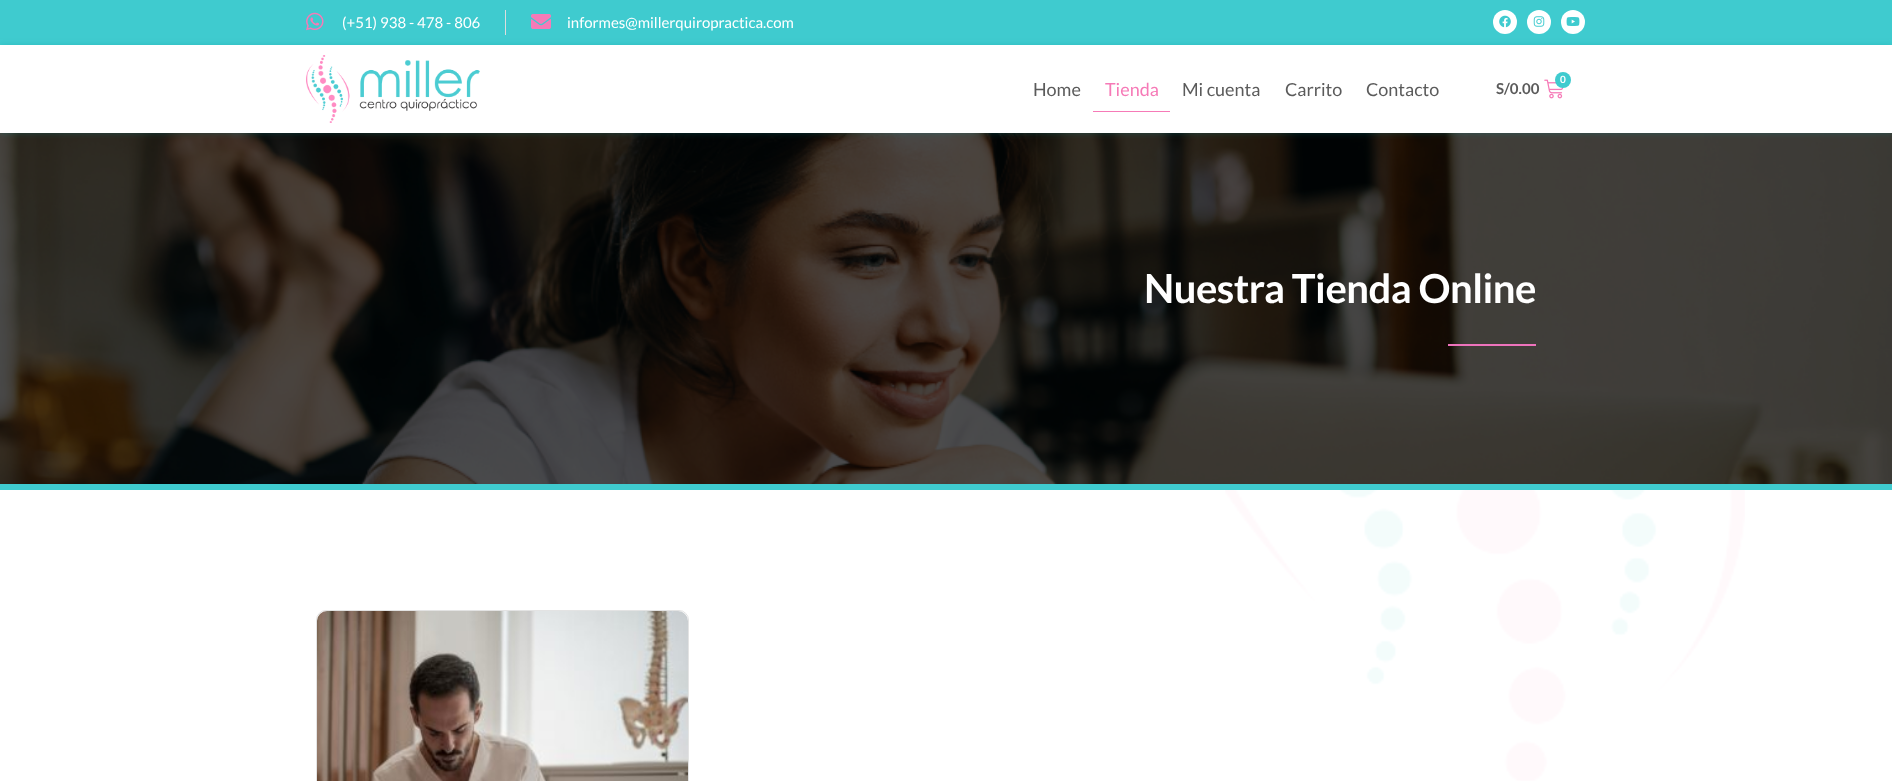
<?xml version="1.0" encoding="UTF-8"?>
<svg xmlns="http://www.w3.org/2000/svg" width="1892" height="781">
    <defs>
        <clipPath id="clip1"><path d="M 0 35 H 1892 V 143 H 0 Z M 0 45 H 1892 V 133 H 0 Z" clip-rule="evenodd"/></clipPath>
        <filter id="blur1" x="-50%" y="-200%" width="200%" height="500%"><feGaussianBlur stdDeviation="3"/></filter>
    </defs>
    <rect width="100%" height="100%" fill="#FFFFFF"/>
    <rect x="0" y="0" width="1892" height="45" fill="#3FCBCF"/>
    <image x="306" y="12" width="18" height="19" href="img_01.png"/>
    <text x="342" y="28" font-family="Lato" font-size="15" fill="#FFFFFF">(+51) 938 - 478 - 806</text>
    <rect x="505" y="10" width="1" height="25" fill="#DDDDDD"/>
    <image x="531" y="14" width="20" height="15" href="img_02.png"/>
    <text x="567" y="28" font-family="Lato" font-size="15" fill="#FFFFFF">informes@millerquiropractica.com</text>
    <circle cx="1505" cy="22" r="12" fill="#FFFFFF"/>
    <image x="1499" y="15" width="12" height="13" href="img_03.png"/>
    <circle cx="1539" cy="22" r="12" fill="#FFFFFF"/>
    <image x="1533" y="16" width="12" height="11" href="img_04.png"/>
    <circle cx="1573" cy="22" r="12" fill="#FFFFFF"/>
    <image x="1566" y="17" width="14" height="9" href="img_05.png"/>
    <image x="0" y="133" width="1892" height="351" href="img_08.png"/>
    <g clip-path="url(#clip1)">
        <rect x="0" y="45" width="1892" height="88" fill="#1E979B" fill-opacity="0.29" filter="url(#blur1)"/>
    </g>
    <image x="306" y="55" width="174" height="68" href="img_06.png"/>
    <text x="1033" y="96" font-family="Lato" font-size="18" fill="#5B5B5B">Home</text>
    <text x="1105" y="96" font-family="Lato" font-size="18" fill="#F67AB7">Tienda</text>
    <rect x="1093" y="111" width="77" height="1" fill="#F67AB7"/>
    <text x="1182" y="96" font-family="Lato" font-size="18" fill="#5B5B5B">Mi cuenta</text>
    <text x="1285" y="96" font-family="Lato" font-size="18" fill="#5B5B5B">Carrito</text>
    <text x="1366" y="96" font-family="Lato" font-size="18" fill="#5B5B5B">Contacto</text>
    <image x="1544" y="79" width="20" height="20" href="img_07.png"/>
    <circle cx="1563" cy="80" r="8" fill="#3FCBCF"/>
    <text x="1560" y="83" font-family="Lato" font-size="10" font-weight="700" fill="#FFFFFF">0</text>
    <text x="1496" y="94" font-family="Lato" font-size="15" font-weight="700" fill="#5B5B5B">S/0.00</text>
    <text x="1144" y="303" font-family="Lato" font-size="40" font-weight="700" letter-spacing="-0.5" fill="#FFFFFF">Nuestra Tienda Online</text>
    <rect x="1448" y="344" width="88" height="2" fill="#EE73BC"/>
    <rect x="0" y="484" width="1892" height="6" fill="#3FCBCF"/>
    <rect x="316.5" y="610.5" width="372" height="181" rx="9.5" fill="none" stroke="#E3E3E3"/>
    <image x="317" y="611" width="371" height="170" href="img_09.png"/>
    <image x="1225" y="490" width="520" height="291" href="img_10.png"/>
</svg>
